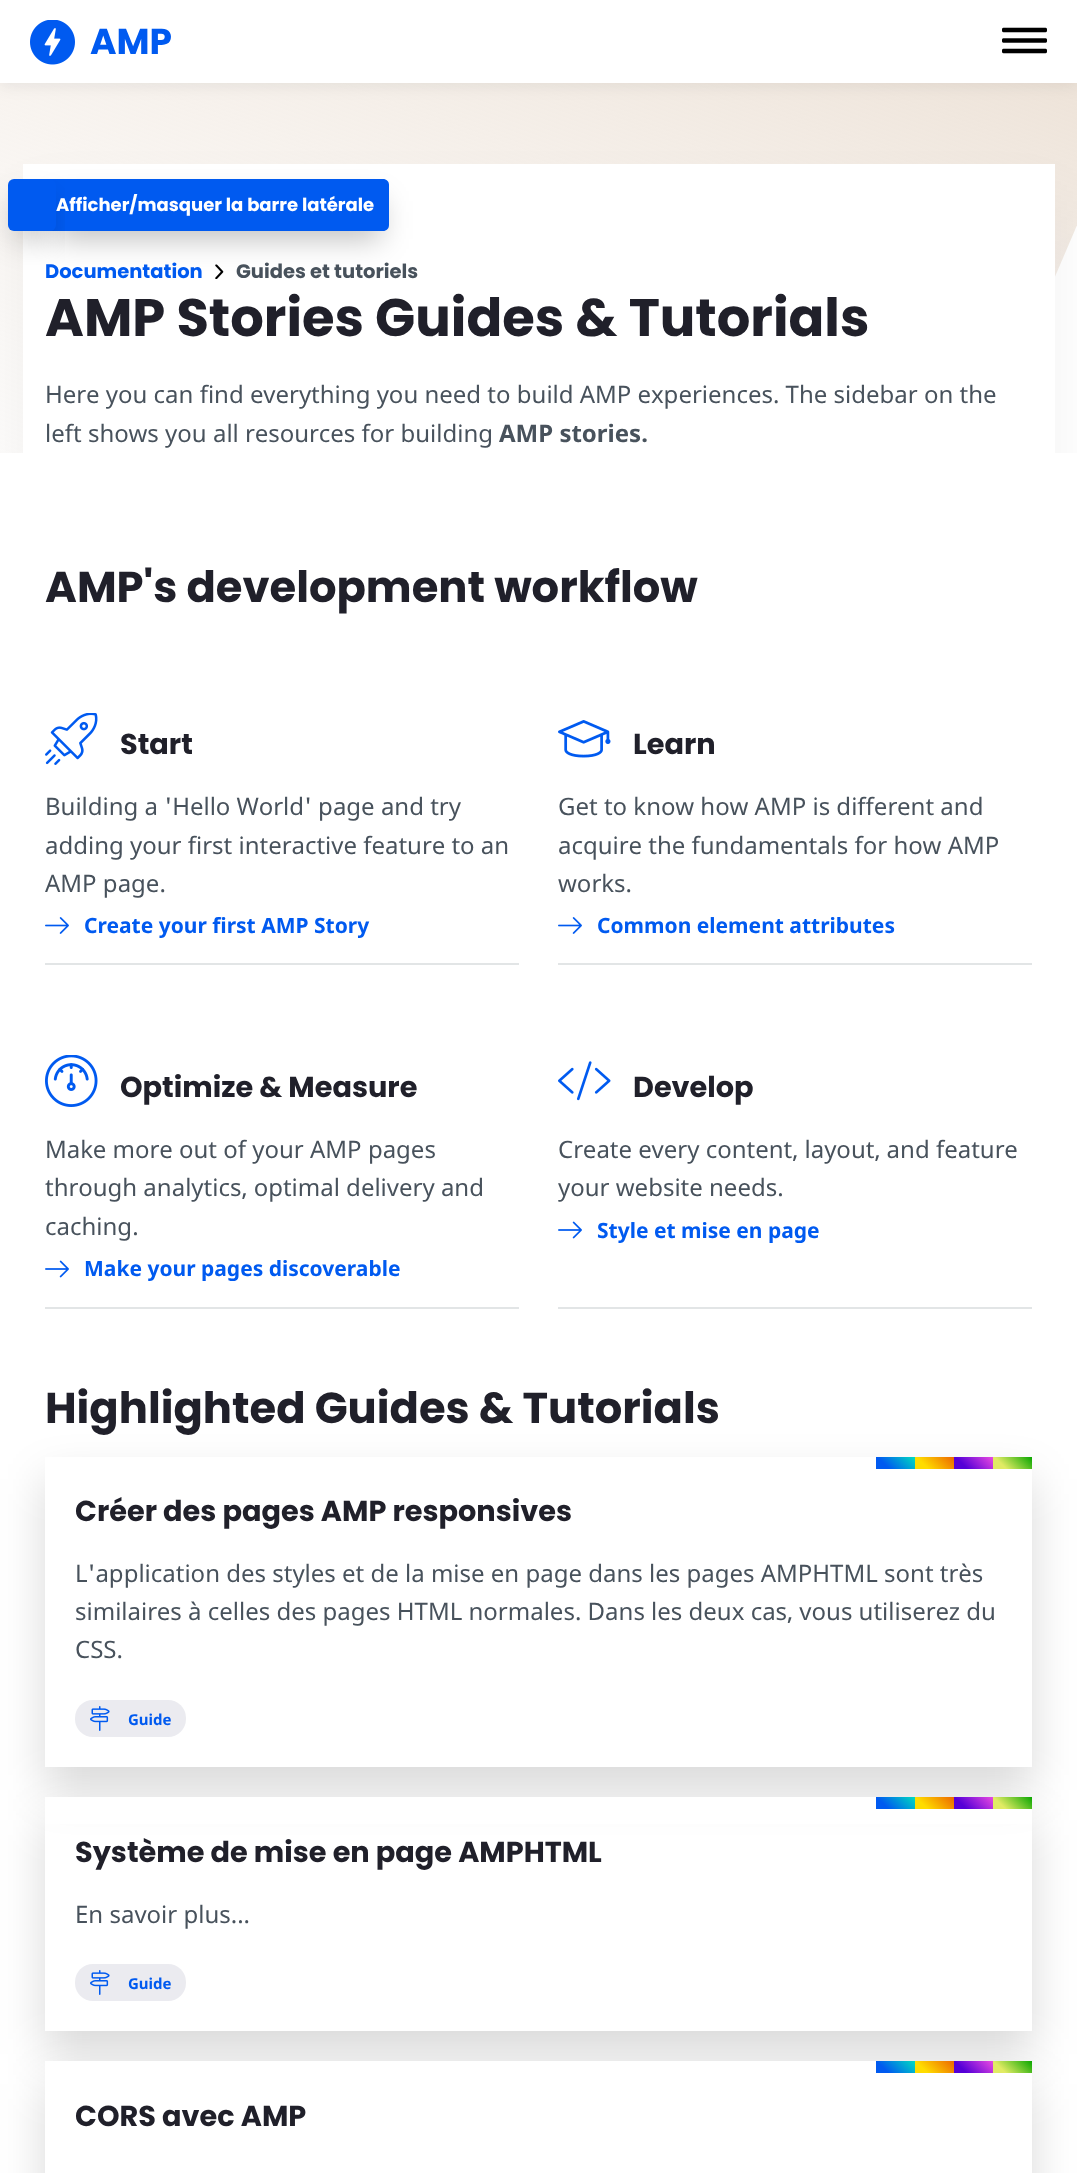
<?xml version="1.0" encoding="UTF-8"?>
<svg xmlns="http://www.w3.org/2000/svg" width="1077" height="2173">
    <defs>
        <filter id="blur1" x="-50%" y="-200%" width="200%" height="500%"><feGaussianBlur stdDeviation="7.5"/></filter>
        <filter id="blur2" x="-50%" y="-200%" width="200%" height="500%"><feGaussianBlur stdDeviation="30"/></filter>
        <filter id="blur3" x="-50%" y="-200%" width="200%" height="500%"><feGaussianBlur stdDeviation="15"/></filter>
        <clipPath id="clip1"><path d="M 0 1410 H 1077 V 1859 H 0 Z M 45 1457 H 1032 V 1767 H 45 Z" clip-rule="evenodd"/></clipPath>
        <filter id="blur4" x="-50%" y="-200%" width="200%" height="500%"><feGaussianBlur stdDeviation="22.5"/></filter>
        <linearGradient id="g1" gradientUnits="userSpaceOnUse" x1="908" y1="1450" x2="883" y2="1475"><stop offset="0" stop-color="#00DCC0"/><stop offset="0.75" stop-color="#005AF0"/></linearGradient>
        <linearGradient id="g2" gradientUnits="userSpaceOnUse" x1="947" y1="1450" x2="922" y2="1475"><stop offset="0" stop-color="#EC6600"/><stop offset="0.75" stop-color="#FFDC00"/></linearGradient>
        <linearGradient id="g3" gradientUnits="userSpaceOnUse" x1="986" y1="1450" x2="961" y2="1475"><stop offset="0" stop-color="#EB49E1"/><stop offset="0.75" stop-color="#5500D7"/></linearGradient>
        <linearGradient id="g4" gradientUnits="userSpaceOnUse" x1="1025" y1="1450" x2="1000" y2="1475"><stop offset="0" stop-color="#09A600"/><stop offset="0.75" stop-color="#E1EB64"/></linearGradient>
        <clipPath id="clip2"><path d="M 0 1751 H 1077 V 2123 H 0 Z M 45 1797 H 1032 V 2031 H 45 Z" clip-rule="evenodd"/></clipPath>
        <linearGradient id="g5" gradientUnits="userSpaceOnUse" x1="908" y1="1790" x2="883" y2="1816"><stop offset="0" stop-color="#00DCC0"/><stop offset="0.75" stop-color="#005AF0"/></linearGradient>
        <linearGradient id="g6" gradientUnits="userSpaceOnUse" x1="947" y1="1790" x2="922" y2="1816"><stop offset="0" stop-color="#EC6600"/><stop offset="0.75" stop-color="#FFDC00"/></linearGradient>
        <linearGradient id="g7" gradientUnits="userSpaceOnUse" x1="986" y1="1790" x2="961" y2="1816"><stop offset="0" stop-color="#EB49E1"/><stop offset="0.75" stop-color="#5500D7"/></linearGradient>
        <linearGradient id="g8" gradientUnits="userSpaceOnUse" x1="1025" y1="1790" x2="1000" y2="1816"><stop offset="0" stop-color="#09A600"/><stop offset="0.75" stop-color="#E1EB64"/></linearGradient>
        <linearGradient id="g9" gradientUnits="userSpaceOnUse" x1="908" y1="2054" x2="883" y2="2080"><stop offset="0" stop-color="#00DCC0"/><stop offset="0.75" stop-color="#005AF0"/></linearGradient>
        <linearGradient id="g10" gradientUnits="userSpaceOnUse" x1="947" y1="2054" x2="922" y2="2080"><stop offset="0" stop-color="#EC6600"/><stop offset="0.75" stop-color="#FFDC00"/></linearGradient>
        <linearGradient id="g11" gradientUnits="userSpaceOnUse" x1="986" y1="2054" x2="961" y2="2080"><stop offset="0" stop-color="#EB49E1"/><stop offset="0.75" stop-color="#5500D7"/></linearGradient>
        <linearGradient id="g12" gradientUnits="userSpaceOnUse" x1="1025" y1="2054" x2="1000" y2="2080"><stop offset="0" stop-color="#09A600"/><stop offset="0.75" stop-color="#E1EB64"/></linearGradient>
    </defs>
    <rect width="100%" height="100%" fill="#FFFFFF"/>
    <image x="0" y="83" width="1077" height="370" href="img_01.png"/>
    <rect x="0" y="3" width="1077" height="83" fill="#000000" fill-opacity="0.07" filter="url(#blur1)"/>
    <rect x="0" y="0" width="1077" height="83" fill="#FFFFFF"/>
    <image x="30" y="20" width="45" height="45" href="img_02.png"/>
    <text x="90" y="54" font-family="Poppins" font-size="36" font-weight="700" fill="#005AF0">AMP</text>
    <image x="1002" y="27" width="45" height="27" href="img_03.png"/>
    <rect x="23" y="201" width="1032" height="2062" fill="#000000" fill-opacity="0.05" filter="url(#blur2)"/>
    <rect x="23" y="164" width="1032" height="289" fill="#FFFFFF"/>
    <image x="215" y="264" width="9" height="15" href="img_04.png"/>
    <rect x="56" y="201" width="325" height="38" fill="#000000" fill-opacity="0.25" filter="url(#blur3)"/>
    <path d="M 48 179 H 383 C 386.5 179 389 181.5 389 185 V 225 C 389 228.5 386.5 231 383 231 H 48 Z" fill="#005AF0"/>
    <rect x="15" y="201" width="33" height="38" fill="#000000" fill-opacity="0.25" filter="url(#blur3)"/>
    <text x="56" y="211" font-family="Poppins" font-size="18" font-weight="700" fill="#FFFFFF">Afficher/masquer la barre latérale</text>
    <rect x="8" y="179" width="48" height="52" rx="6" fill="#005AF0"/>
    <text x="45" y="278" font-family="Poppins" font-size="19.5" font-weight="700" fill="#005AF0">Documentation</text>
    <text x="236" y="278" font-family="Poppins" font-size="19.5" font-weight="700" fill="#48525C">Guides et tutoriels</text>
    <text x="45" y="336" font-family="Poppins" font-size="52.75" font-weight="700" fill="#20202A">AMP Stories Guides &amp; Tutorials</text>
    <text font-family="Noto Sans" font-size="24" fill="#48525C">
        <tspan x="45" y="403">Here you can find everything you need to build AMP experiences. The sidebar on the</tspan>
        <tspan x="45" y="442">left shows you all resources for building</tspan>
    </text>
    <text x="499" y="442" font-family="Noto Sans" font-size="24" font-weight="700" fill="#48525C">AMP stories.</text>
    <rect x="0" y="453" width="1077" height="1720" fill="#FFFFFF"/>
    <text x="45" y="602" font-family="Poppins" font-size="43.25" font-weight="700" fill="#20202A">AMP's development workflow</text>
    <rect x="45" y="963" width="474" height="2" fill="#E2E5E6"/>
    <image x="45" y="713" width="53" height="52" href="img_05.png"/>
    <text x="120" y="754" font-family="Poppins" font-size="28.75" font-weight="700" fill="#20202A">Start</text>
    <text font-family="Noto Sans" font-size="24" fill="#48525C">
        <tspan x="45" y="815">Building a 'Hello World' page and try</tspan>
        <tspan x="45" y="854">adding your first interactive feature to an</tspan>
        <tspan x="45" y="892">AMP page.</tspan>
    </text>
    <image x="45" y="917" width="24" height="17" href="img_06.png"/>
    <text x="84" y="933" font-family="Noto Sans" font-size="21" font-weight="700" fill="#005AF0">Create your first AMP Story</text>
    <rect x="558" y="963" width="474" height="2" fill="#E2E5E6"/>
    <image x="558" y="720" width="53" height="38" href="img_07.png"/>
    <text x="633" y="754" font-family="Poppins" font-size="28.75" font-weight="700" fill="#20202A">Learn</text>
    <text font-family="Noto Sans" font-size="24" fill="#48525C">
        <tspan x="558" y="815">Get to know how AMP is different and</tspan>
        <tspan x="558" y="854">acquire the fundamentals for how AMP</tspan>
        <tspan x="558" y="892">works.</tspan>
    </text>
    <image x="558" y="917" width="24" height="17" href="img_06.png"/>
    <text x="597" y="933" font-family="Noto Sans" font-size="21" font-weight="700" fill="#005AF0">Common element attributes</text>
    <rect x="45" y="1307" width="474" height="2" fill="#E2E5E6"/>
    <image x="45" y="1055" width="53" height="52" href="img_08.png"/>
    <text x="120" y="1097" font-family="Poppins" font-size="28.75" font-weight="700" fill="#20202A">Optimize &amp; Measure</text>
    <text font-family="Noto Sans" font-size="24" fill="#48525C">
        <tspan x="45" y="1158">Make more out of your AMP pages</tspan>
        <tspan x="45" y="1196">through analytics, optimal delivery and</tspan>
        <tspan x="45" y="1235">caching.</tspan>
    </text>
    <image x="45" y="1260" width="24" height="18" href="img_09.png"/>
    <text x="84" y="1276" font-family="Noto Sans" font-size="21" font-weight="700" fill="#005AF0">Make your pages discoverable</text>
    <rect x="558" y="1307" width="474" height="2" fill="#E2E5E6"/>
    <image x="558" y="1061" width="53" height="40" href="img_10.png"/>
    <text x="633" y="1097" font-family="Poppins" font-size="28.75" font-weight="700" fill="#20202A">Develop</text>
    <text font-family="Noto Sans" font-size="24" fill="#48525C">
        <tspan x="558" y="1158">Create every content, layout, and feature</tspan>
        <tspan x="558" y="1196">your website needs.</tspan>
    </text>
    <image x="558" y="1221" width="24" height="18" href="img_09.png"/>
    <text x="597" y="1238" font-family="Noto Sans" font-size="21" font-weight="700" fill="#005AF0">Style et mise en page</text>
    <text x="45" y="1423" font-family="Poppins" font-size="43.25" font-weight="700" fill="#20202A">Highlighted Guides &amp; Tutorials</text>
    <g clip-path="url(#clip1)">
        <rect x="45" y="1479" width="987" height="311" fill="#000000" fill-opacity="0.15" filter="url(#blur4)"/>
    </g>
    <rect x="876" y="1457" width="39" height="12" fill="url(#g1)"/>
    <rect x="915" y="1457" width="39" height="12" fill="url(#g2)"/>
    <rect x="954" y="1457" width="39" height="12" fill="url(#g3)"/>
    <rect x="993" y="1457" width="39" height="12" fill="url(#g4)"/>
    <text x="75" y="1521" font-family="Poppins" font-size="28.75" font-weight="700" fill="#20202A">Créer des pages AMP responsives</text>
    <text font-family="Noto Sans" font-size="24" fill="#48525C">
        <tspan x="75" y="1582">L'application des styles et de la mise en page dans les pages AMPHTML sont très</tspan>
        <tspan x="75" y="1620">similaires à celles des pages HTML normales. Dans les deux cas, vous utiliserez du</tspan>
        <tspan x="75" y="1658">CSS.</tspan>
    </text>
    <rect x="75" y="1700" width="111" height="37" rx="18" fill="#EBEBF0"/>
    <image x="90" y="1706" width="20" height="25" href="img_11.png"/>
    <text x="128" y="1725" font-family="Noto Sans" font-size="15" font-weight="700" fill="#005AF0">Guide</text>
    <rect x="45" y="1797" width="987" height="27" fill="#FFFFFF"/>
    <g clip-path="url(#clip2)">
        <rect x="45" y="1820" width="987" height="234" fill="#000000" fill-opacity="0.15" filter="url(#blur4)"/>
    </g>
    <rect x="876" y="1797" width="39" height="12" fill="url(#g5)"/>
    <rect x="915" y="1797" width="39" height="12" fill="url(#g6)"/>
    <rect x="954" y="1797" width="39" height="12" fill="url(#g7)"/>
    <rect x="993" y="1797" width="39" height="12" fill="url(#g8)"/>
    <text x="75" y="1862" font-family="Poppins" font-size="28.75" font-weight="700" fill="#20202A">Système de mise en page AMPHTML</text>
    <text x="75" y="1923" font-family="Noto Sans" font-size="24" fill="#48525C">En savoir plus...</text>
    <rect x="75" y="1964" width="111" height="37" rx="18" fill="#EBEBF0"/>
    <image x="90" y="1970" width="20" height="25" href="img_11.png"/>
    <text x="128" y="1989" font-family="Noto Sans" font-size="15" font-weight="700" fill="#005AF0">Guide</text>
    <rect x="45" y="2084" width="987" height="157" fill="#000000" fill-opacity="0.15" filter="url(#blur4)"/>
    <rect x="45" y="2061" width="987" height="112" fill="#FFFFFF"/>
    <rect x="876" y="2061" width="39" height="12" fill="url(#g9)"/>
    <rect x="915" y="2061" width="39" height="12" fill="url(#g10)"/>
    <rect x="954" y="2061" width="39" height="12" fill="url(#g11)"/>
    <rect x="993" y="2061" width="39" height="12" fill="url(#g12)"/>
    <text x="75" y="2126" font-family="Poppins" font-size="28.75" font-weight="700" fill="#20202A">CORS avec AMP</text>
</svg>
